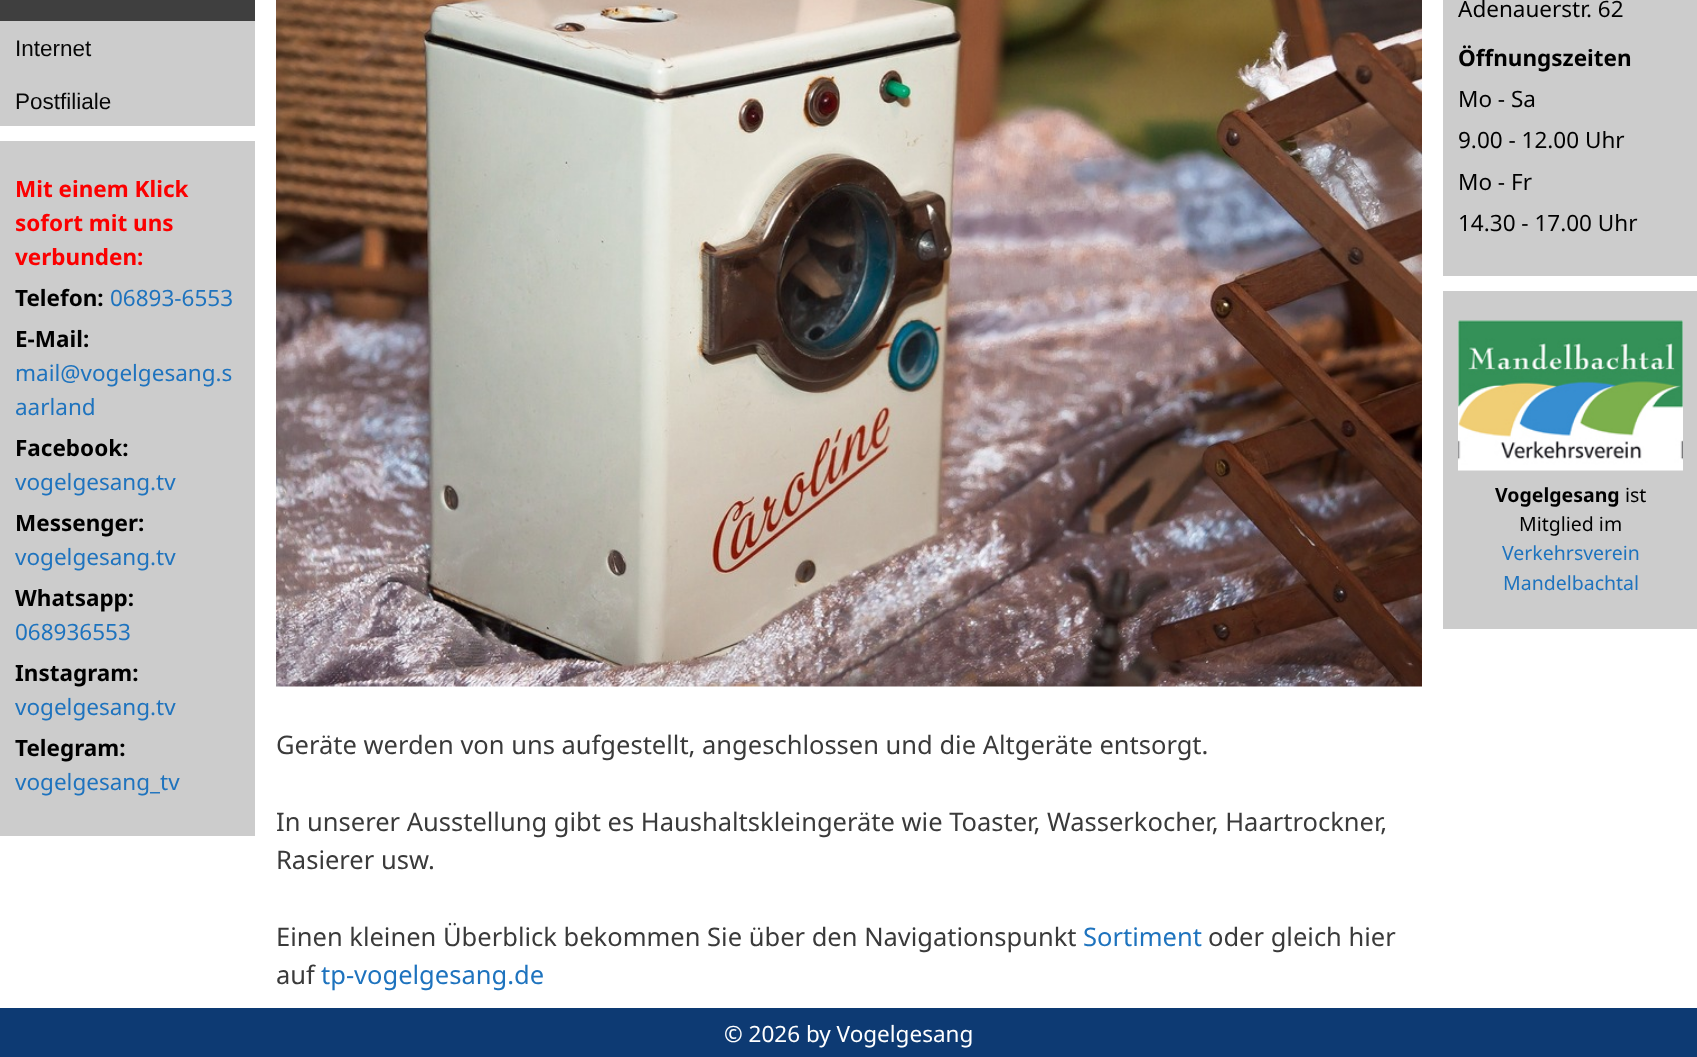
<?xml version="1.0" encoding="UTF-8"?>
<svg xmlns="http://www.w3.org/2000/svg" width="1697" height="1057">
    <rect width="100%" height="100%" fill="#FFFFFF"/>
    <rect x="0" y="21" width="255" height="105" fill="#CCCCCC"/>
    <rect x="0" y="0" width="255" height="21" fill="#3F3F3F"/>
    <text x="15" y="56" font-family="Liberation Sans" font-size="22.5" fill="#070707">Internet</text>
    <text x="15" y="109" font-family="Liberation Sans" font-size="22.5" fill="#070707">Postfiliale</text>
    <rect x="0" y="141" width="255" height="695" fill="#CCCCCC"/>
    <text font-family="Noto Sans" font-size="22.5" font-weight="700" fill="#FB0000">
        <tspan x="15" y="197">Mit einem Klick</tspan>
        <tspan x="15" y="231">sofort mit uns</tspan>
        <tspan x="15" y="265">verbunden:</tspan>
    </text>
    <text x="15" y="306" font-family="Noto Sans" font-size="22.5" font-weight="700" fill="#000000">Telefon:</text>
    <text x="110" y="306" font-family="Noto Sans" font-size="22.5" fill="#1E73BE">06893-6553</text>
    <text x="15" y="347" font-family="Noto Sans" font-size="22.5" font-weight="700" fill="#000000">E-Mail:</text>
    <text font-family="Noto Sans" font-size="22.5" fill="#1E73BE">
        <tspan x="15" y="381">mail@vogelgesang.s</tspan>
        <tspan x="15" y="415">aarland</tspan>
    </text>
    <text x="15" y="456" font-family="Noto Sans" font-size="22.5" font-weight="700" fill="#000000">Facebook:</text>
    <text x="15" y="490" font-family="Noto Sans" font-size="22.5" fill="#1E73BE">vogelgesang.tv</text>
    <text x="15" y="531" font-family="Noto Sans" font-size="22.5" font-weight="700" fill="#000000">Messenger:</text>
    <text x="15" y="565" font-family="Noto Sans" font-size="22.5" fill="#1E73BE">vogelgesang.tv</text>
    <text x="15" y="606" font-family="Noto Sans" font-size="22.5" font-weight="700" fill="#000000">Whatsapp:</text>
    <text x="15" y="640" font-family="Noto Sans" font-size="22.5" fill="#1E73BE">068936553</text>
    <text x="15" y="681" font-family="Noto Sans" font-size="22.5" font-weight="700" fill="#000000">Instagram:</text>
    <text x="15" y="715" font-family="Noto Sans" font-size="22.5" fill="#1E73BE">vogelgesang.tv</text>
    <text x="15" y="756" font-family="Noto Sans" font-size="22.5" font-weight="700" fill="#000000">Telegram:</text>
    <text x="15" y="790" font-family="Noto Sans" font-size="22.5" fill="#1E73BE">vogelgesang_tv</text>
    <rect x="1443" y="0" width="254" height="276" fill="#CCCCCC"/>
    <text x="1458" y="17" font-family="Noto Sans" font-size="22.5" fill="#000000">Adenauerstr. 62</text>
    <text x="1458" y="66" font-family="Noto Sans" font-size="22.5" font-weight="700" fill="#000000">Öffnungszeiten</text>
    <text font-family="Noto Sans" font-size="22.5" fill="#000000">
        <tspan x="1458" y="107">Mo - Sa</tspan>
        <tspan x="1458" y="148">9.00 - 12.00 Uhr</tspan>
        <tspan x="1458" y="190">Mo - Fr</tspan>
        <tspan x="1458" y="231">14.30 - 17.00 Uhr</tspan>
    </text>
    <rect x="1443" y="291" width="254" height="338" fill="#CCCCCC"/>
    <image x="1458" y="320" width="225" height="151" href="img_01.png"/>
    <text x="1495" y="502" font-family="Noto Sans" font-size="19.5" font-weight="700" fill="#000000">Vogelgesang</text>
    <text x="1625" y="502" font-family="Noto Sans" font-size="19.5" fill="#000000">ist</text>
    <text x="1519" y="531" font-family="Noto Sans" font-size="19.5" fill="#000000">Mitglied im</text>
    <text x="1502" y="560" font-family="Noto Sans" font-size="19.5" fill="#1E73BE">Verkehrsverein</text>
    <text x="1503" y="590" font-family="Noto Sans" font-size="19.5" fill="#1E73BE">Mandelbachtal</text>
    <image x="276" y="0" width="1146" height="687" href="img_02.png"/>
    <text x="276" y="754" font-family="Noto Sans" font-size="25.5" fill="#3A3A3A">Geräte werden von uns aufgestellt, angeschlossen und die Altgeräte entsorgt.</text>
    <text font-family="Noto Sans" font-size="25.5" fill="#3A3A3A">
        <tspan x="276" y="831">In unserer Ausstellung gibt es Haushaltskleingeräte wie Toaster, Wasserkocher, Haartrockner,</tspan>
        <tspan x="276" y="869">Rasierer usw.</tspan>
    </text>
    <text x="276" y="946" font-family="Noto Sans" font-size="25.5" fill="#3A3A3A">Einen kleinen Überblick bekommen Sie über den Navigationspunkt</text>
    <text x="1083" y="946" font-family="Noto Sans" font-size="25.5" fill="#1E73BE">Sortiment</text>
    <text x="1208" y="946" font-family="Noto Sans" font-size="25.5" fill="#3A3A3A">oder gleich hier</text>
    <text x="276" y="984" font-family="Noto Sans" font-size="25.5" fill="#3A3A3A">auf</text>
    <text x="321" y="984" font-family="Noto Sans" font-size="25.5" fill="#1E73BE">tp-vogelgesang.de</text>
    <rect x="0" y="1008" width="1697" height="49" fill="#0D3A73"/>
    <text x="724" y="1042" font-family="Noto Sans" font-size="22.5" fill="#FFFFFF">© 2026 by Vogelgesang</text>
</svg>
